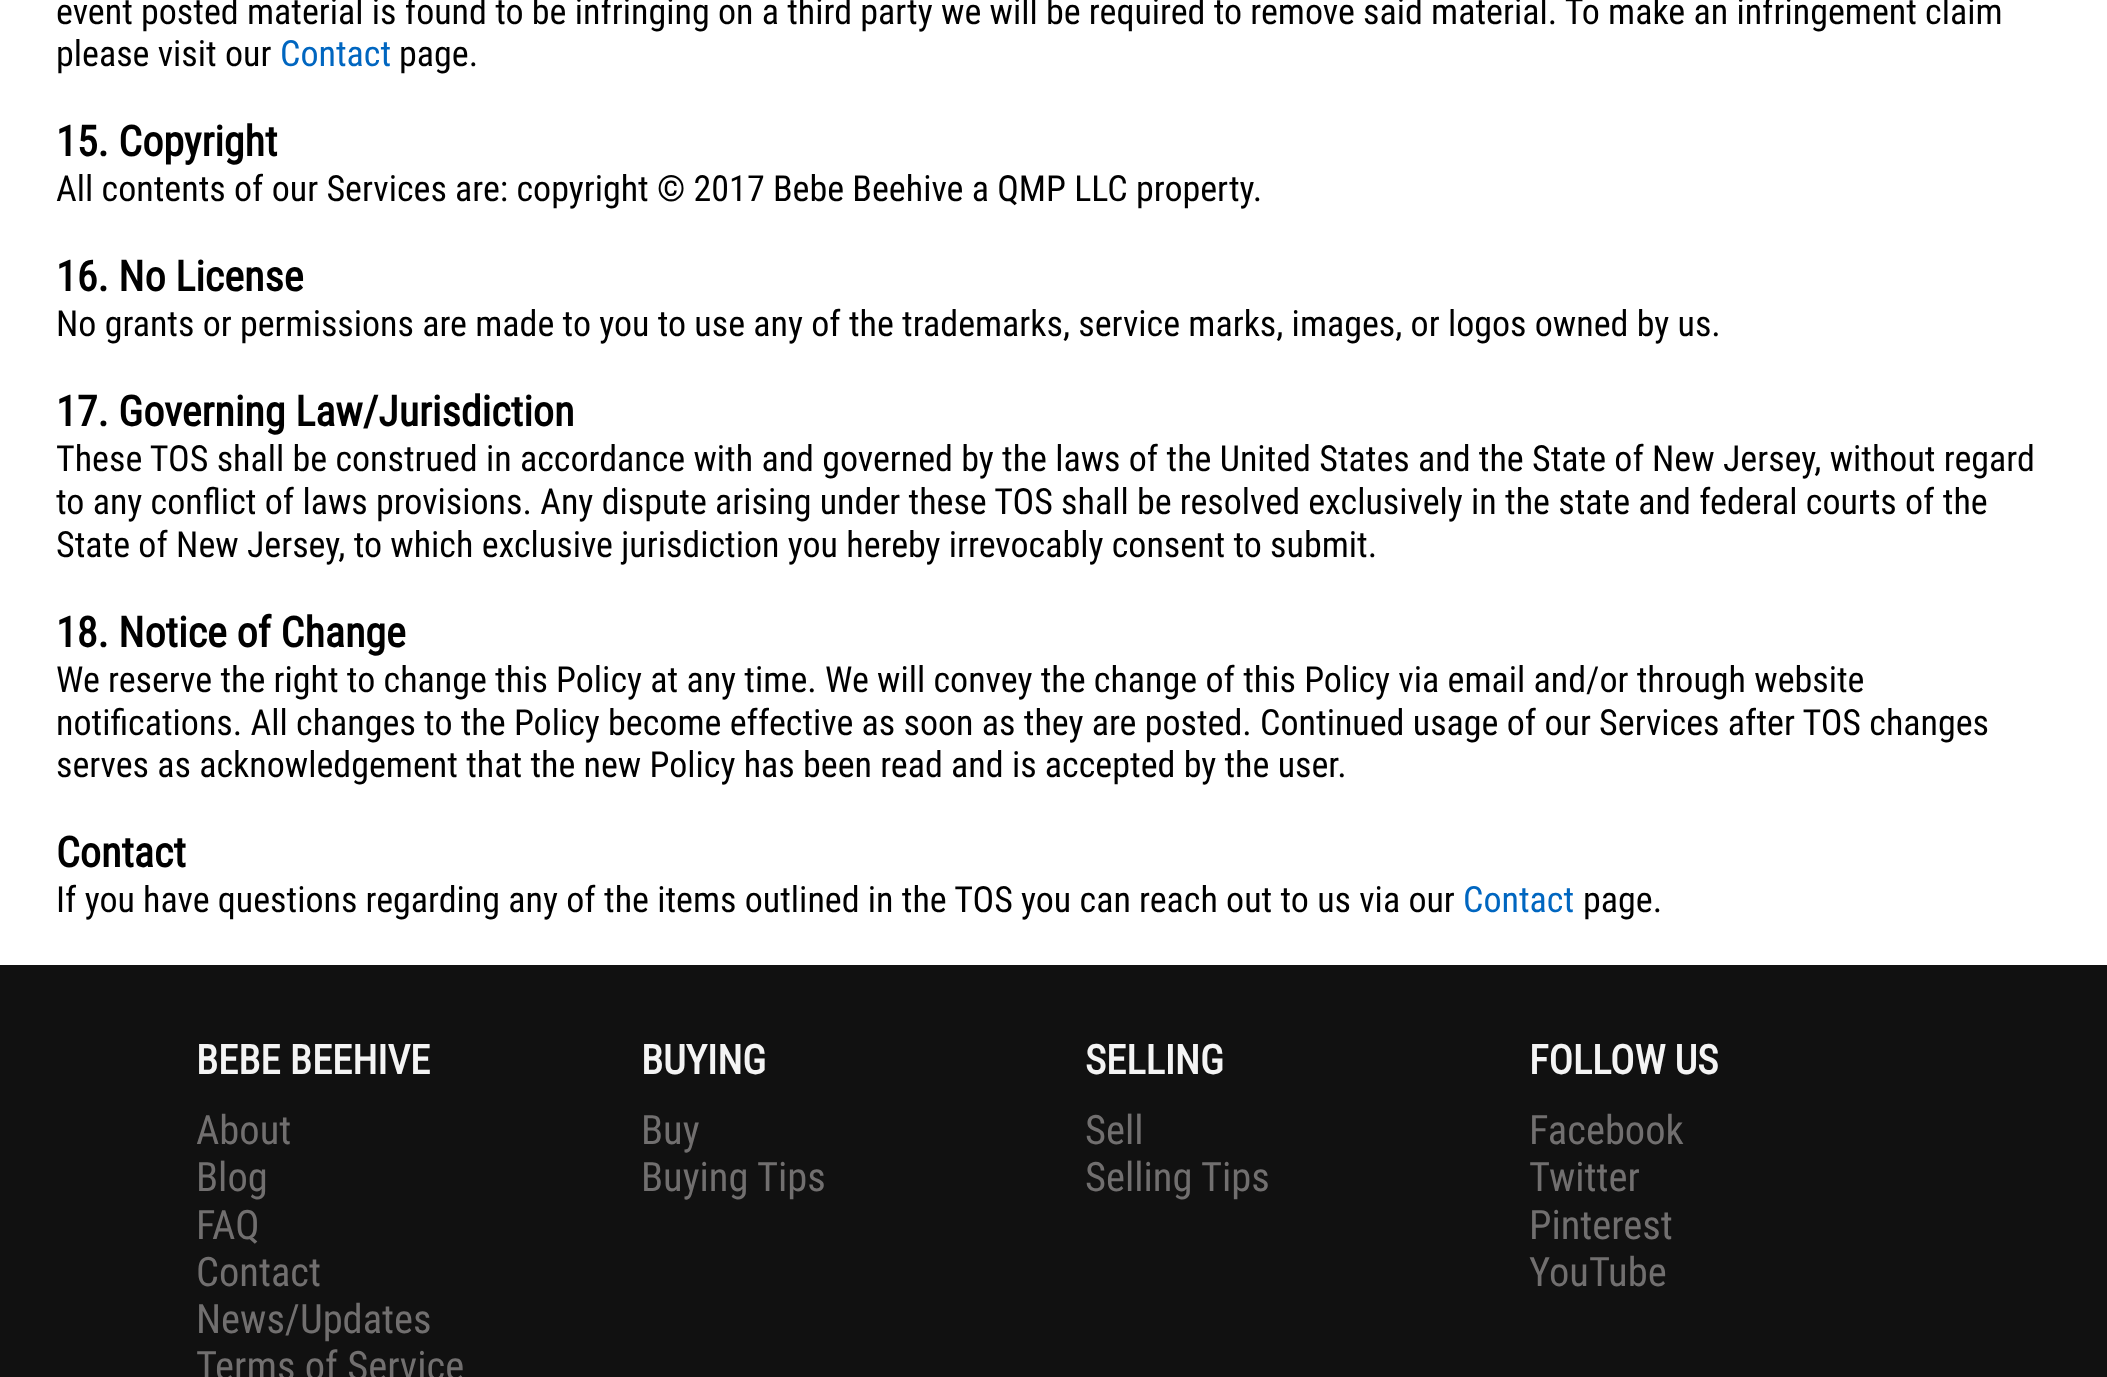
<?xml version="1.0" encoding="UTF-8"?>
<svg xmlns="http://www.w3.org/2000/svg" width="2107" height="1377">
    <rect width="100%" height="100%" fill="#FFFFFF"/>
    <text font-family="Roboto Condensed" font-size="36" fill="#000000">
        <tspan x="56" y="24">event posted material is found to be infringing on a third party we will be required to remove said material. To make an infringement claim</tspan>
        <tspan x="56" y="66">please visit our</tspan>
    </text>
    <text x="280" y="66" font-family="Roboto Condensed" font-size="36" fill="#0066C0">Contact</text>
    <text x="399" y="66" font-family="Roboto Condensed" font-size="36" fill="#000000">page.</text>
    <text x="56" y="156" font-family="Roboto Condensed" font-size="42.1" font-weight="700" fill="#000000">15. Copyright</text>
    <text x="56" y="201" font-family="Roboto Condensed" font-size="36" fill="#000000">All contents of our Services are: copyright © 2017 Bebe Beehive a QMP LLC property.</text>
    <text x="56" y="291" font-family="Roboto Condensed" font-size="42.1" font-weight="700" fill="#000000">16. No License</text>
    <text x="56" y="336" font-family="Roboto Condensed" font-size="36" fill="#000000">No grants or permissions are made to you to use any of the trademarks, service marks, images, or logos owned by us.</text>
    <text x="56" y="426" font-family="Roboto Condensed" font-size="42.1" font-weight="700" fill="#000000">17. Governing Law/Jurisdiction</text>
    <text font-family="Roboto Condensed" font-size="36" fill="#000000">
        <tspan x="56" y="471">These TOS shall be construed in accordance with and governed by the laws of the United States and the State of New Jersey, without regard</tspan>
        <tspan x="56" y="514">to any conflict of laws provisions. Any dispute arising under these TOS shall be resolved exclusively in the state and federal courts of the</tspan>
        <tspan x="56" y="557">State of New Jersey, to which exclusive jurisdiction you hereby irrevocably consent to submit.</tspan>
    </text>
    <text x="56" y="647" font-family="Roboto Condensed" font-size="42.1" font-weight="700" fill="#000000">18. Notice of Change</text>
    <text font-family="Roboto Condensed" font-size="36" fill="#000000">
        <tspan x="56" y="692">We reserve the right to change this Policy at any time. We will convey the change of this Policy via email and/or through website</tspan>
        <tspan x="56" y="735">notifications. All changes to the Policy become effective as soon as they are posted. Continued usage of our Services after TOS changes</tspan>
        <tspan x="56" y="777">serves as acknowledgement that the new Policy has been read and is accepted by the user.</tspan>
    </text>
    <text x="56" y="867" font-family="Roboto Condensed" font-size="42.1" font-weight="700" fill="#000000">Contact</text>
    <text x="56" y="912" font-family="Roboto Condensed" font-size="36" fill="#000000">If you have questions regarding any of the items outlined in the TOS you can reach out to us via our</text>
    <text x="1463" y="912" font-family="Roboto Condensed" font-size="36" fill="#0066C0">Contact</text>
    <text x="1583" y="912" font-family="Roboto Condensed" font-size="36" fill="#000000">page.</text>
    <rect x="0" y="965" width="2107" height="412" fill="#111111"/>
    <text x="196" y="1074" font-family="Roboto Condensed" font-size="40.5" font-weight="700" fill="#F4F4F4">BEBE BEEHIVE</text>
    <text font-family="Roboto Condensed" font-size="40.5" fill="#716F6F">
        <tspan x="196" y="1144">About</tspan>
        <tspan x="196" y="1191">Blog</tspan>
        <tspan x="196" y="1239">FAQ</tspan>
        <tspan x="196" y="1286">Contact</tspan>
        <tspan x="196" y="1333">News/Updates</tspan>
        <tspan x="196" y="1380">Terms of Service</tspan>
    </text>
    <text x="641" y="1074" font-family="Roboto Condensed" font-size="40.5" font-weight="700" fill="#F4F4F4">BUYING</text>
    <text font-family="Roboto Condensed" font-size="40.5" fill="#716F6F">
        <tspan x="641" y="1144">Buy</tspan>
        <tspan x="641" y="1191">Buying Tips</tspan>
    </text>
    <text x="1085" y="1074" font-family="Roboto Condensed" font-size="40.5" font-weight="700" fill="#F4F4F4">SELLING</text>
    <text font-family="Roboto Condensed" font-size="40.5" fill="#716F6F">
        <tspan x="1085" y="1144">Sell</tspan>
        <tspan x="1085" y="1191">Selling Tips</tspan>
    </text>
    <text x="1529" y="1074" font-family="Roboto Condensed" font-size="40.5" font-weight="700" fill="#F4F4F4">FOLLOW US</text>
    <text font-family="Roboto Condensed" font-size="40.5" fill="#716F6F">
        <tspan x="1529" y="1144">Facebook</tspan>
        <tspan x="1529" y="1191">Twitter</tspan>
        <tspan x="1529" y="1239">Pinterest</tspan>
        <tspan x="1529" y="1286">YouTube</tspan>
    </text>
</svg>
